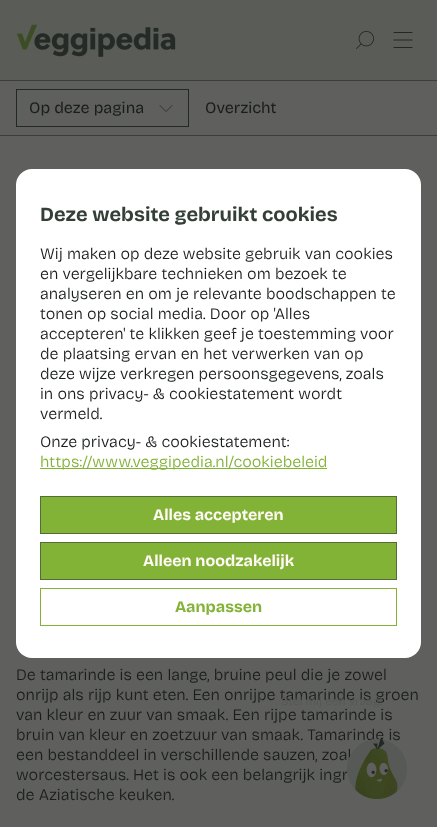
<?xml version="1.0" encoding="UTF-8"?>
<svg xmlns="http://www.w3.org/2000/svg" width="437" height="827">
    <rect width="100%" height="100%" fill="#5F605D"/>
    <rect x="0" y="0" width="437" height="80" fill="#5A5C57"/>
    <image x="16" y="24" width="160" height="33" href="img_01.png"/>
    <image x="356" y="31" width="18" height="18" href="img_02.png"/>
    <path d="M 394 47.5 H 412 M 394 40 H 412 M 394 32.5 H 412" fill="none" stroke="#222823" stroke-width="1.1" stroke-linecap="round" stroke-linejoin="round"/>
    <rect x="0" y="80" width="437" height="1" fill="#3A3E3A"/>
    <rect x="0" y="135" width="437" height="1" fill="#3A3E3A"/>
    <rect x="16.5" y="89.5" width="172" height="37" fill="none" stroke="#222823"/>
    <text x="29" y="113" font-family="Bricolage Grotesque" font-size="16" fill="#1A1E1B">Op deze pagina</text>
    <path d="M 160 105.5 L 166 111.5 L 172 105.5" fill="none" stroke="#222823" stroke-width="0.8" stroke-linecap="round" stroke-linejoin="round"/>
    <text x="205" y="113" font-family="Bricolage Grotesque" font-size="16" fill="#1A1E1B">Overzicht</text>
    <text font-family="Bricolage Grotesque" font-size="16" font-weight="300" fill="#1A1E1B">
        <tspan x="16" y="680">De tamarinde is een lange, bruine peul die je zowel</tspan>
        <tspan x="16" y="700">onrijp als rijp kunt eten. Een onrijpe tamarinde is groen</tspan>
        <tspan x="16" y="720">van kleur en zuur van smaak. Een rijpe tamarinde is</tspan>
        <tspan x="16" y="740">bruin van kleur en zoetzuur van smaak. Tamarinde is</tspan>
        <tspan x="16" y="760">een bestanddeel in verschillende sauzen, zoal</tspan>
        <tspan x="16" y="780">worcestersaus. Het is ook een belangrijk ingr</tspan>
        <tspan x="16" y="800">de Aziatische keuken.</tspan>
    </text>
    <rect x="16" y="169" width="405" height="489" rx="16" fill="#FFFFFF"/>
    <text x="40" y="221" font-family="Bricolage Grotesque" font-size="20" font-weight="700" fill="#343F37">Deze website gebruikt cookies</text>
    <text font-family="Bricolage Grotesque" font-size="16" font-weight="300" fill="#1A1E1B">
        <tspan x="40" y="259">Wij maken op deze website gebruik van cookies</tspan>
        <tspan x="40" y="279">en vergelijkbare technieken om bezoek te</tspan>
        <tspan x="40" y="299">analyseren en om je relevante boodschappen te</tspan>
        <tspan x="40" y="319">tonen op social media. Door op 'Alles</tspan>
        <tspan x="40" y="339">accepteren' te klikken geef je toestemming voor</tspan>
        <tspan x="40" y="359">de plaatsing ervan en het verwerken van op</tspan>
        <tspan x="40" y="379">deze wijze verkregen persoonsgegevens, zoals</tspan>
        <tspan x="40" y="399">in ons privacy- &amp; cookiestatement wordt</tspan>
        <tspan x="40" y="419">vermeld.</tspan>
        <tspan x="40" y="447">Onze privacy- &amp; cookiestatement:</tspan>
    </text>
    <rect x="40" y="468" width="287" height="1" fill="#82B236"/>
    <text x="40" y="467" font-family="Bricolage Grotesque" font-size="16" font-weight="300" fill="#82B236">https://www.veggipedia.nl/cookiebeleid</text>
    <rect x="40.5" y="496.5" width="356" height="37" fill="#82B236" stroke="#536D37"/>
    <text x="153" y="520" font-family="Bricolage Grotesque" font-size="16" font-weight="700" fill="#FFFAF6">Alles accepteren</text>
    <rect x="40.5" y="542.5" width="356" height="37" fill="#82B236" stroke="#536D37"/>
    <text x="143" y="566" font-family="Bricolage Grotesque" font-size="16" font-weight="700" fill="#FFFAF6">Alleen noodzakelijk</text>
    <rect x="40.5" y="588.5" width="356" height="37" fill="none" stroke="#82B236"/>
    <text x="175" y="612" font-family="Bricolage Grotesque" font-size="16" font-weight="700" fill="#82B236">Aanpassen</text>
    <text x="281" y="705" font-family="Bricolage Grotesque" font-size="12" font-weight="300" fill="#565855">Stel mij een vraag!</text>
    <image x="347" y="737" width="60" height="62" href="img_03.png"/>
</svg>
